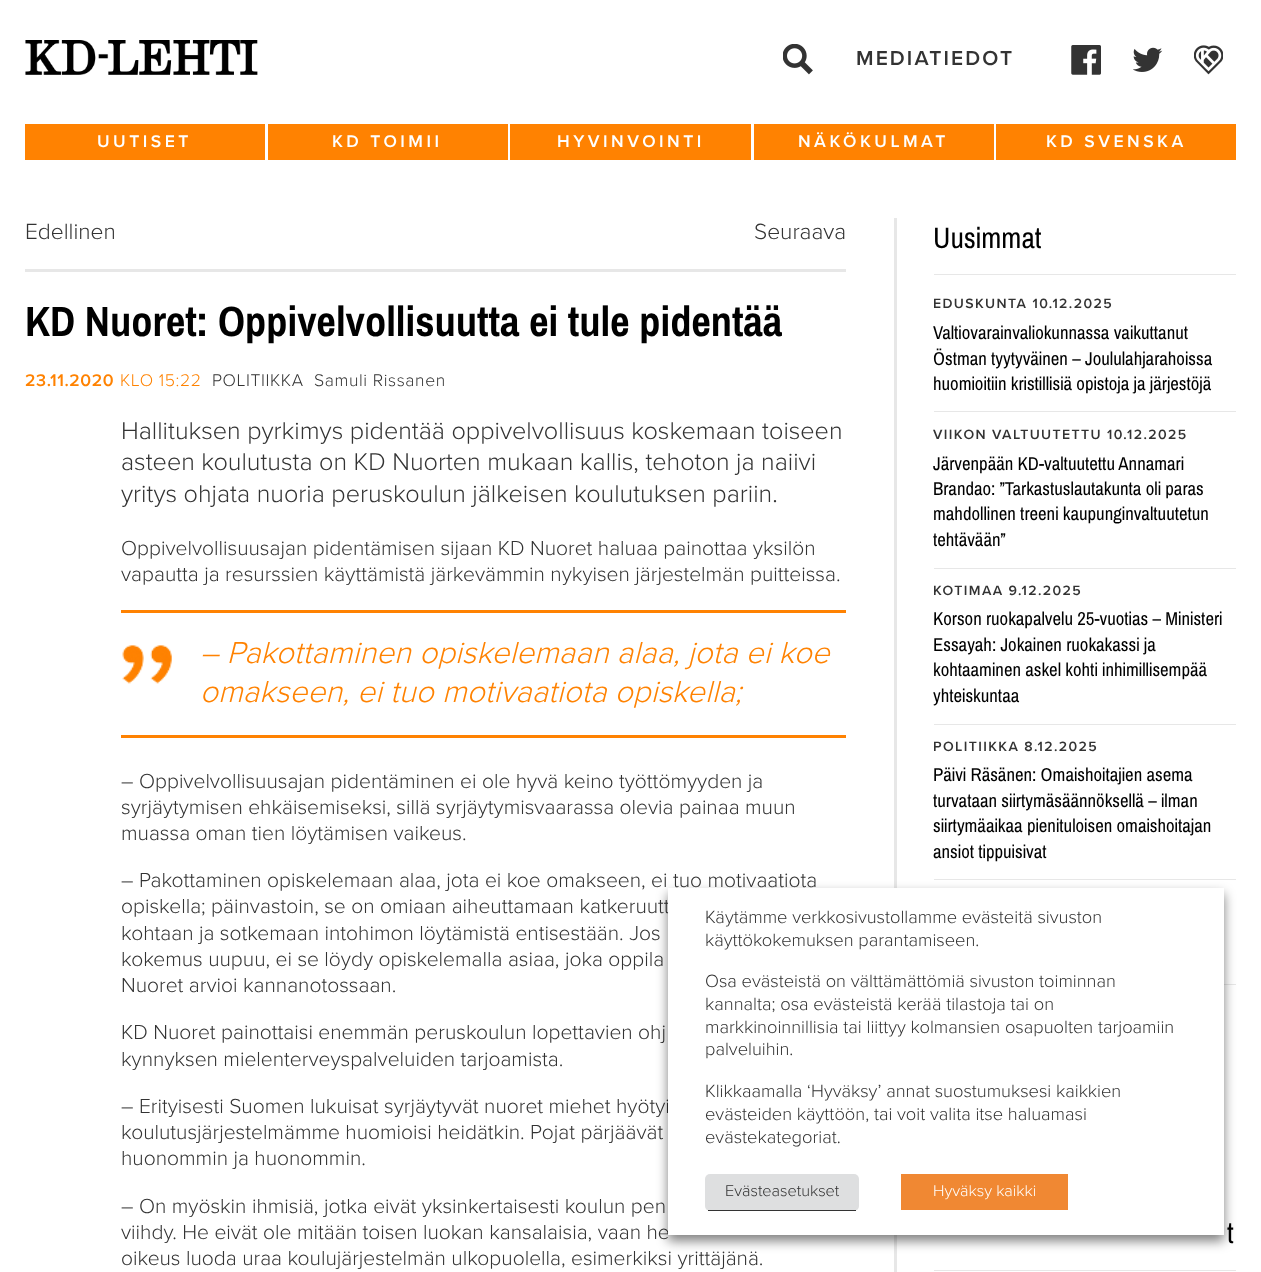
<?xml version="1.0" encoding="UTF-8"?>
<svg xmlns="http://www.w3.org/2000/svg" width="1261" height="1272">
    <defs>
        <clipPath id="clip1"><path d="M 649 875 H 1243 V 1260 H 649 Z M 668 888 H 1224 V 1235 H 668 Z" clip-rule="evenodd"/></clipPath>
        <filter id="blur1" x="-50%" y="-200%" width="200%" height="500%"><feGaussianBlur stdDeviation="6"/></filter>
    </defs>
    <rect width="100%" height="100%" fill="#FFFFFF"/>
    <image x="25" y="40" width="233" height="35" href="img_01.png"/>
    <image x="783" y="44" width="30" height="31" href="img_02.png"/>
    <text x="856" y="65" font-family="Proxima Nova" font-size="21" font-weight="600" letter-spacing="2.1" fill="#333333">MEDIATIEDOT</text>
    <image x="1071" y="45" width="30" height="30" href="img_03.png"/>
    <image x="1133" y="47" width="30" height="25" href="img_04.png"/>
    <image x="1194" y="45" width="29" height="30" href="img_05.png"/>
    <rect x="25" y="124" width="240" height="36" fill="#FF8201"/>
    <text x="97" y="147" font-family="Proxima Nova" font-size="17.5" font-weight="600" letter-spacing="3.5" fill="#FFFFFF">UUTISET</text>
    <rect x="268" y="124" width="240" height="36" fill="#FF8201"/>
    <text x="332" y="147" font-family="Proxima Nova" font-size="17.5" font-weight="600" letter-spacing="3.5" fill="#FFFFFF">KD TOIMII</text>
    <rect x="510" y="124" width="241" height="36" fill="#FF8201"/>
    <text x="557" y="147" font-family="Proxima Nova" font-size="17.5" font-weight="600" letter-spacing="3.5" fill="#FFFFFF">HYVINVOINTI</text>
    <rect x="754" y="124" width="240" height="36" fill="#FF8201"/>
    <text x="798" y="147" font-family="Proxima Nova" font-size="17.5" font-weight="600" letter-spacing="3.5" fill="#FFFFFF">NÄKÖKULMAT</text>
    <rect x="996" y="124" width="240" height="36" fill="#FF8201"/>
    <text x="1046" y="147" font-family="Proxima Nova" font-size="17.5" font-weight="600" letter-spacing="3.5" fill="#FFFFFF">KD SVENSKA</text>
    <rect x="25" y="269" width="821" height="3" fill="#E7E7E7"/>
    <text x="25" y="239" font-family="Proxima Nova" font-size="22.75" font-weight="300" fill="#333333">Edellinen</text>
    <text x="754" y="239" font-family="Proxima Nova" font-size="22.75" font-weight="300" fill="#333333">Seuraava</text>
    <text x="25" y="336" font-family="Pragati Narrow" font-size="46.1" font-weight="700" fill="#000000">KD Nuoret: Oppivelvollisuutta ei tule pidentää</text>
    <text x="25" y="386" font-family="Proxima Nova" font-size="17.5" font-weight="600" letter-spacing="0.6" fill="#FF8201">23.11.2020</text>
    <text x="120" y="386" font-family="Proxima Nova" font-size="17.5" font-weight="300" letter-spacing="0.6" fill="#FF8201">KLO 15:22</text>
    <text x="212" y="386" font-family="Proxima Nova" font-size="17.5" font-weight="300" letter-spacing="0.6" fill="#333333">POLITIIKKA</text>
    <text x="314" y="386" font-family="Proxima Nova" font-size="17.5" font-weight="300" letter-spacing="0.6" fill="#333333">Samuli Rissanen</text>
    <text font-family="Proxima Nova" font-size="25.2" font-weight="300" fill="#333333">
        <tspan x="121" y="439">Hallituksen pyrkimys pidentää oppivelvollisuus koskemaan toiseen</tspan>
        <tspan x="121" y="470">asteen koulutusta on KD Nuorten mukaan kallis, tehoton ja naiivi</tspan>
        <tspan x="121" y="502">yritys ohjata nuoria peruskoulun jälkeisen koulutuksen pariin.</tspan>
    </text>
    <text font-family="Proxima Nova" font-size="21" font-weight="300" fill="#333333">
        <tspan x="121" y="555">Oppivelvollisuusajan pidentämisen sijaan KD Nuoret haluaa painottaa yksilön</tspan>
        <tspan x="121" y="581">vapautta ja resurssien käyttämistä järkevämmin nykyisen järjestelmän puitteissa.</tspan>
    </text>
    <image x="122" y="645" width="50" height="39" href="img_06.png"/>
    <rect x="121" y="610" width="725" height="3" fill="#FF8201"/>
    <rect x="121" y="735" width="725" height="3" fill="#FF8201"/>
    <text font-family="Proxima Nova" font-size="31.5" font-weight="300" font-style="italic" fill="#FF8201">
        <tspan x="200" y="663">– Pakottaminen opiskelemaan alaa, jota ei koe</tspan>
        <tspan x="200" y="702">omakseen, ei tuo motivaatiota opiskella;</tspan>
    </text>
    <text font-family="Proxima Nova" font-size="21" font-weight="300" fill="#333333">
        <tspan x="121" y="788">– Oppivelvollisuusajan pidentäminen ei ole hyvä keino työttömyyden ja</tspan>
        <tspan x="121" y="814">syrjäytymisen ehkäisemiseksi, sillä syrjäytymisvaarassa olevia painaa muun</tspan>
        <tspan x="121" y="840">muassa oman tien löytämisen vaikeus.</tspan>
    </text>
    <text font-family="Proxima Nova" font-size="21" font-weight="300" fill="#333333">
        <tspan x="121" y="887">– Pakottaminen opiskelemaan alaa, jota ei koe omakseen, ei tuo motivaatiota</tspan>
        <tspan x="121" y="913">opiskella; päinvastoin, se on omiaan aiheuttamaan katkeruutt</tspan>
        <tspan x="121" y="940">kohtaan ja sotkemaan intohimon löytämistä entisestään. Jos</tspan>
        <tspan x="121" y="966">kokemus uupuu, ei se löydy opiskelemalla asiaa, joka oppila</tspan>
        <tspan x="121" y="992">Nuoret arvioi kannanotossaan.</tspan>
    </text>
    <text font-family="Proxima Nova" font-size="21" font-weight="300" fill="#333333">
        <tspan x="121" y="1039">KD Nuoret painottaisi enemmän peruskoulun lopettavien ohj</tspan>
        <tspan x="121" y="1066">kynnyksen mielenterveyspalveluiden tarjoamista.</tspan>
    </text>
    <text font-family="Proxima Nova" font-size="21" font-weight="300" fill="#333333">
        <tspan x="121" y="1113">– Erityisesti Suomen lukuisat syrjäytyvät nuoret miehet hyötyi</tspan>
        <tspan x="121" y="1139">koulutusjärjestelmämme huomioisi heidätkin. Pojat pärjäävät</tspan>
        <tspan x="121" y="1165">huonommin ja huonommin.</tspan>
    </text>
    <text font-family="Proxima Nova" font-size="21" font-weight="300" fill="#333333">
        <tspan x="121" y="1213">– On myöskin ihmisiä, jotka eivät yksinkertaisesti koulun pen</tspan>
        <tspan x="121" y="1239">viihdy. He eivät ole mitään toisen luokan kansalaisia, vaan he</tspan>
        <tspan x="121" y="1265">oikeus luoda uraa koulujärjestelmän ulkopuolella, esimerkiksi yrittäjänä.</tspan>
    </text>
    <rect x="894" y="218" width="3" height="1054" fill="#E7E7E7"/>
    <rect x="934" y="274" width="302" height="1" fill="#E7E7E7"/>
    <text x="933" y="248" font-family="Pragati Narrow" font-size="32" fill="#000000">Uusimmat</text>
    <rect x="934" y="411" width="302" height="1" fill="#E7E7E7"/>
    <text x="933" y="308" font-family="Proxima Nova" font-size="14" font-weight="600" letter-spacing="1.4" fill="#333333">EDUSKUNTA 10.12.2025</text>
    <text font-family="Pragati Narrow" font-size="20.4" fill="#000000">
        <tspan x="933" y="339">Valtiovarainvaliokunnassa vaikuttanut</tspan>
        <tspan x="933" y="365">Östman tyytyväinen – Joululahjarahoissa</tspan>
        <tspan x="933" y="390">huomioitiin kristillisiä opistoja ja järjestöjä</tspan>
    </text>
    <rect x="934" y="568" width="302" height="1" fill="#E7E7E7"/>
    <text x="933" y="439" font-family="Proxima Nova" font-size="14" font-weight="600" letter-spacing="1.4" fill="#333333">VIIKON VALTUUTETTU 10.12.2025</text>
    <text font-family="Pragati Narrow" font-size="20.4" fill="#000000">
        <tspan x="933" y="470">Järvenpään KD-valtuutettu Annamari</tspan>
        <tspan x="933" y="495">Brandao: ”Tarkastuslautakunta oli paras</tspan>
        <tspan x="933" y="520">mahdollinen treeni kaupunginvaltuutetun</tspan>
        <tspan x="933" y="546">tehtävään”</tspan>
    </text>
    <rect x="934" y="724" width="302" height="1" fill="#E7E7E7"/>
    <text x="933" y="595" font-family="Proxima Nova" font-size="14" font-weight="600" letter-spacing="1.4" fill="#333333">KOTIMAA 9.12.2025</text>
    <text font-family="Pragati Narrow" font-size="20.4" fill="#000000">
        <tspan x="933" y="625">Korson ruokapalvelu 25-vuotias – Ministeri</tspan>
        <tspan x="933" y="651">Essayah: Jokainen ruokakassi ja</tspan>
        <tspan x="933" y="676">kohtaaminen askel kohti inhimillisempää</tspan>
        <tspan x="933" y="702">yhteiskuntaa</tspan>
    </text>
    <rect x="934" y="879" width="302" height="1" fill="#E7E7E7"/>
    <text x="933" y="751" font-family="Proxima Nova" font-size="14" font-weight="600" letter-spacing="1.4" fill="#333333">POLITIIKKA 8.12.2025</text>
    <text font-family="Pragati Narrow" font-size="20.4" fill="#000000">
        <tspan x="933" y="781">Päivi Räsänen: Omaishoitajien asema</tspan>
        <tspan x="933" y="807">turvataan siirtymäsäännöksellä – ilman</tspan>
        <tspan x="933" y="832">siirtymäaikaa pienituloisen omaishoitajan</tspan>
        <tspan x="933" y="858">ansiot tippuisivat</tspan>
    </text>
    <rect x="934" y="984" width="302" height="1" fill="#E7E7E7"/>
    <rect x="934" y="1270" width="302" height="1" fill="#E7E7E7"/>
    <text x="1227" y="1243" font-family="Pragati Narrow" font-size="32" fill="#000000">t</text>
    <g clip-path="url(#clip1)">
        <rect x="668" y="894" width="556" height="347" fill="#000000" fill-opacity="0.5" filter="url(#blur1)"/>
    </g>
    <rect x="668" y="888" width="556" height="347" fill="#FFFFFF" fill-opacity="0.97"/>
    <text font-family="Proxima Nova" font-size="18.3" font-weight="300" fill="#333333">
        <tspan x="705" y="923">Käytämme verkkosivustollamme evästeitä sivuston</tspan>
        <tspan x="705" y="946">käyttökokemuksen parantamiseen.</tspan>
    </text>
    <text font-family="Proxima Nova" font-size="18.3" font-weight="300" fill="#333333">
        <tspan x="705" y="987">Osa evästeistä on välttämättömiä sivuston toiminnan</tspan>
        <tspan x="705" y="1010">kannalta; osa evästeistä kerää tilastoja tai on</tspan>
        <tspan x="705" y="1033">markkinoinnillisia tai liittyy kolmansien osapuolten tarjoamiin</tspan>
        <tspan x="705" y="1055">palveluihin.</tspan>
    </text>
    <text font-family="Proxima Nova" font-size="18.3" font-weight="300" fill="#333333">
        <tspan x="705" y="1097">Klikkaamalla ‘Hyväksy’ annat suostumuksesi kaikkien</tspan>
        <tspan x="705" y="1120">evästeiden käyttöön, tai voit valita itse haluamasi</tspan>
        <tspan x="705" y="1143">evästekategoriat.</tspan>
    </text>
    <rect x="705" y="1174" width="154" height="37" rx="5" fill="#DEDFE0"/>
    <rect x="708" y="1210" width="148" height="1" fill="#333333"/>
    <text x="725" y="1196" font-family="Proxima Nova" font-size="16.25" font-weight="300" fill="#333333">Evästeasetukset</text>
    <rect x="901" y="1174" width="167" height="36" fill="#F08833"/>
    <text x="933" y="1196" font-family="Proxima Nova" font-size="16.25" font-weight="300" fill="#FFFFFF">Hyväksy kaikki</text>
</svg>
